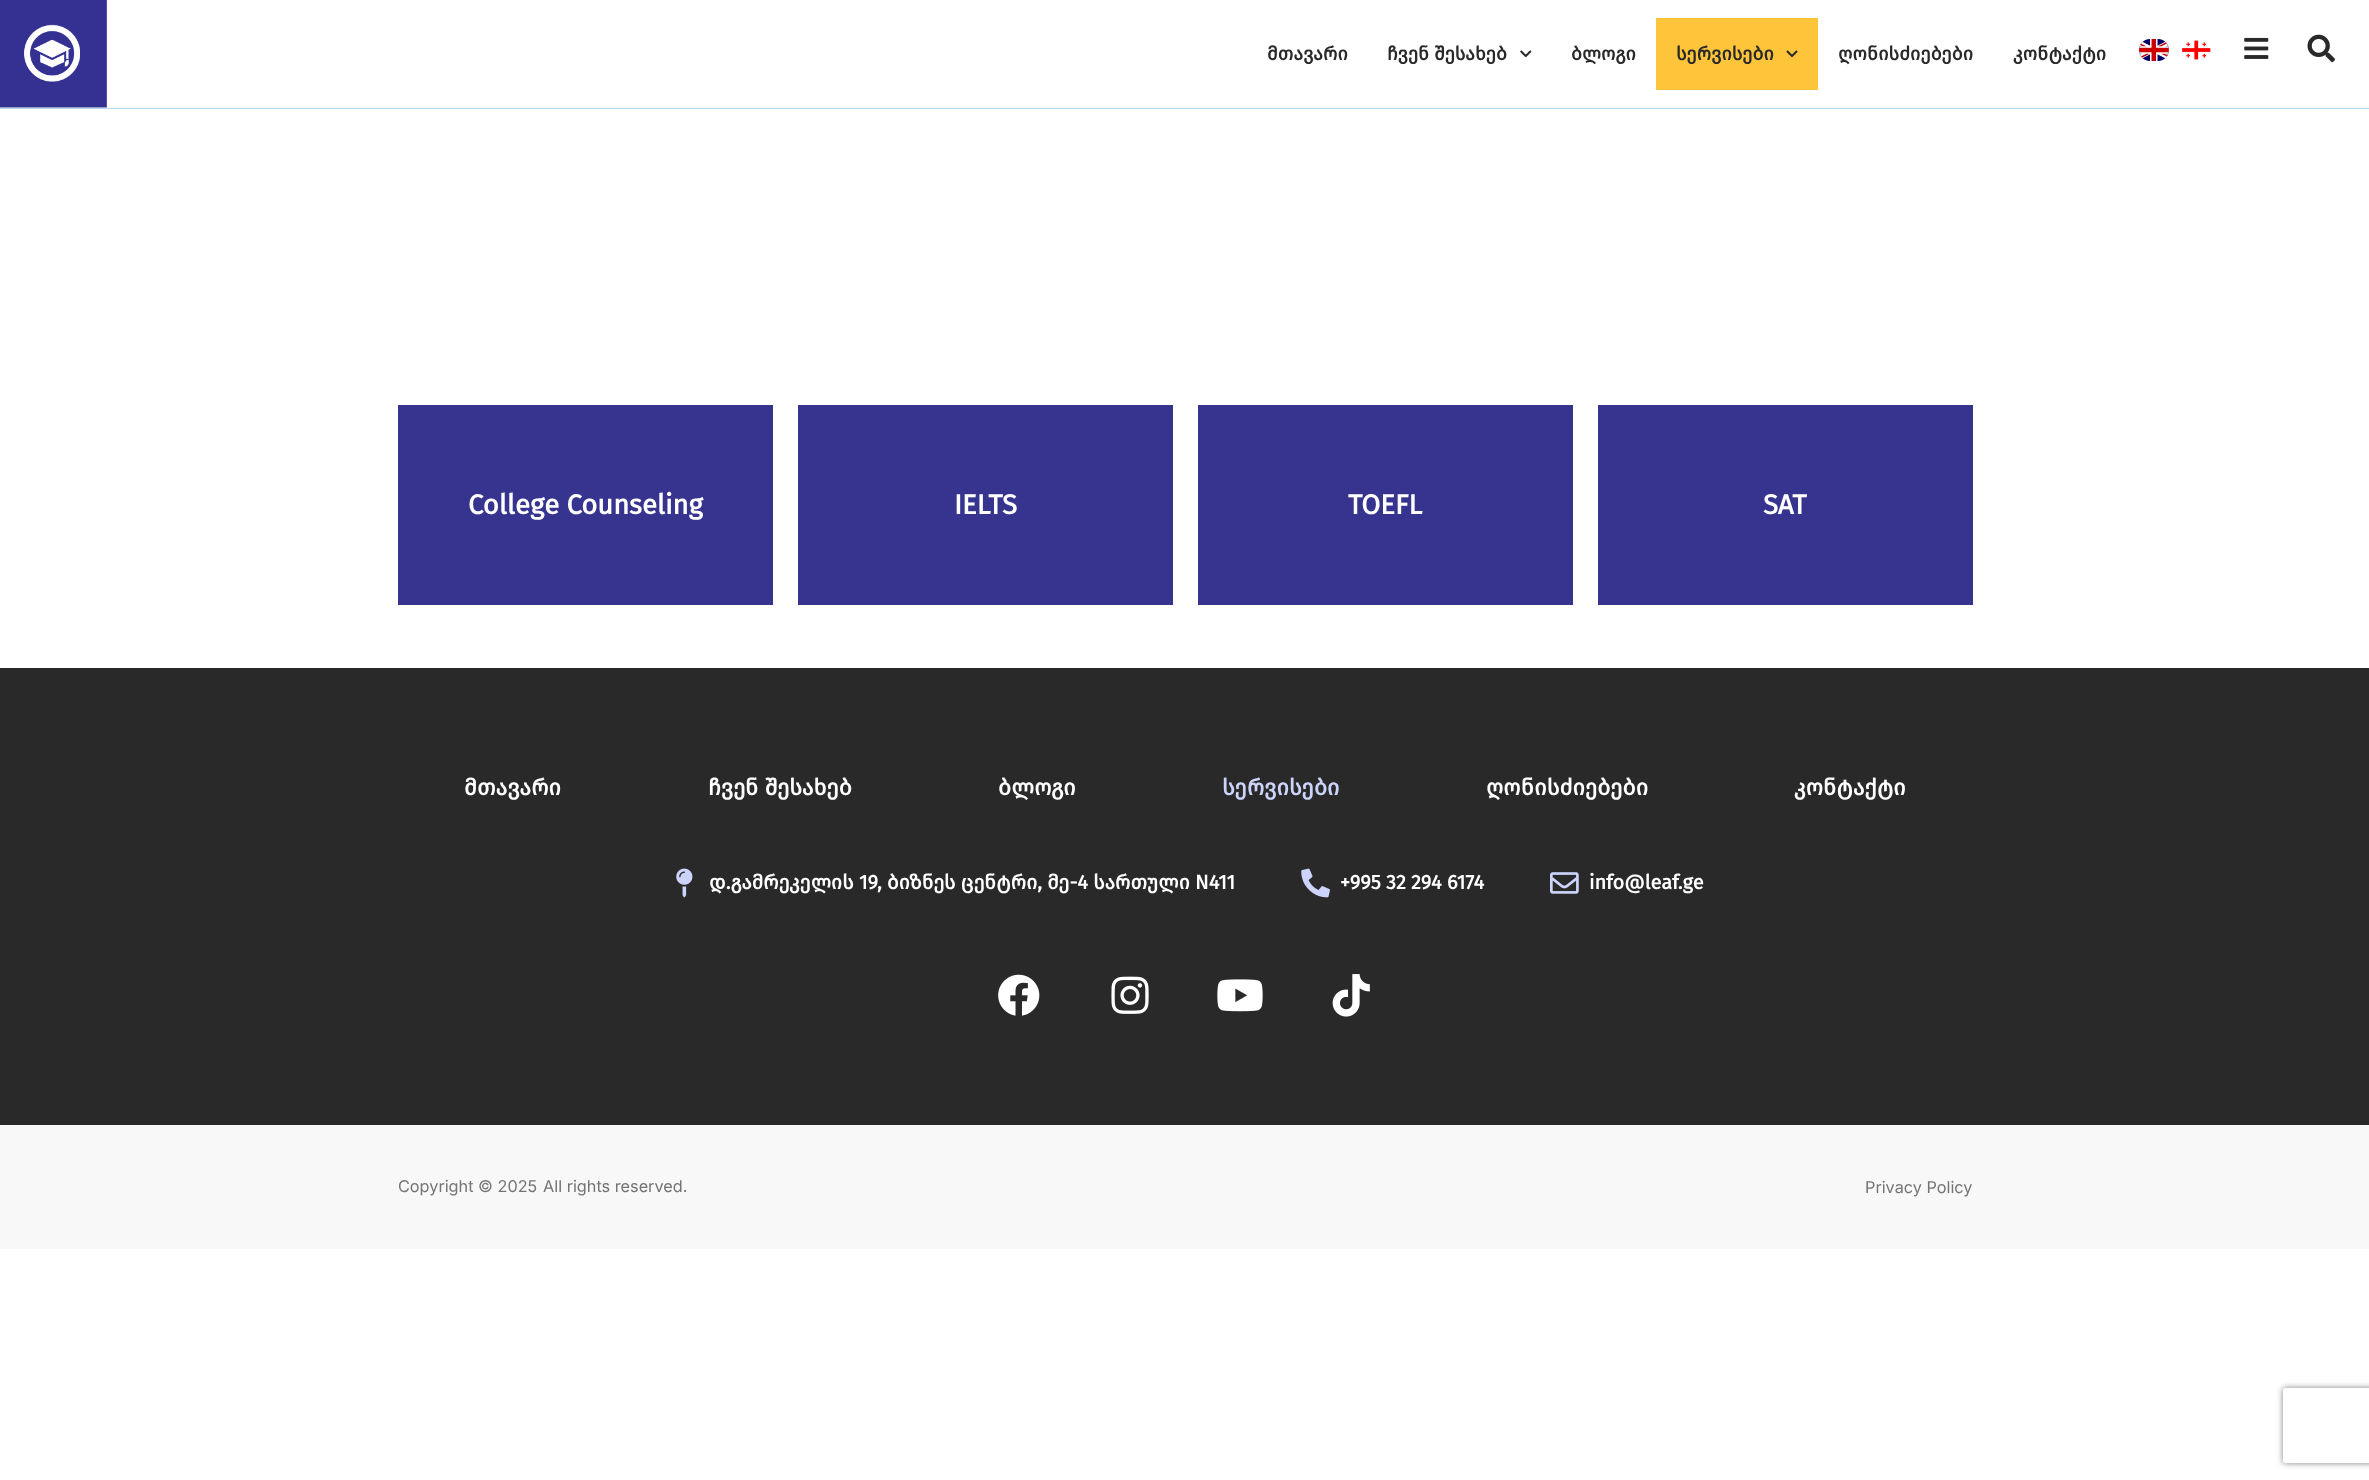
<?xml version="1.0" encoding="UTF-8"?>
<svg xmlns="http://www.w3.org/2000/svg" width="2369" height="1480">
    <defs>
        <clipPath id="clip1"><path d="M 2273 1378 H 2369 V 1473 H 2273 Z M 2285.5 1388 H 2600.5 C 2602 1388 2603 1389 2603 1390.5 V 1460.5 C 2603 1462 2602 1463 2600.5 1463 H 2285.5 C 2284 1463 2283 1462 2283 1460.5 V 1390.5 C 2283 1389 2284 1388 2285.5 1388 Z" clip-rule="evenodd"/></clipPath>
        <filter id="blur1" x="-50%" y="-200%" width="200%" height="500%"><feGaussianBlur stdDeviation="3"/></filter>
    </defs>
    <rect width="100%" height="100%" fill="#FFFFFF"/>
    <image x="0" y="0" width="108" height="108" href="img_01.png"/>
    <text x="1267" y="60" font-family="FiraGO" font-size="18.75" font-weight="700" fill="#292929">მთავარი</text>
    <text x="1387" y="60" font-family="FiraGO" font-size="18.75" font-weight="700" fill="#292929">ჩვენ შესახებ</text>
    <image x="1520" y="50" width="12" height="8" href="img_02.png"/>
    <text x="1571" y="60" font-family="FiraGO" font-size="18.75" font-weight="700" fill="#292929">ბლოგი</text>
    <rect x="1656" y="18" width="162" height="72" fill="#FFC53A"/>
    <text x="1676" y="60" font-family="FiraGO" font-size="18.75" font-weight="700" fill="#292929">სერვისები</text>
    <image x="1786" y="50" width="12" height="8" href="img_03.png"/>
    <text x="1838" y="60" font-family="FiraGO" font-size="18.75" font-weight="700" fill="#292929">ღონისძიებები</text>
    <text x="2013" y="60" font-family="FiraGO" font-size="18.75" font-weight="700" fill="#292929">კონტაქტი</text>
    <image x="2139" y="39" width="30" height="22" href="img_04.png"/>
    <image x="2182" y="40" width="29" height="20" href="img_05.png"/>
    <image x="2244" y="37" width="25" height="22" href="img_06.png"/>
    <image x="2307" y="34" width="28" height="29" href="img_07.png"/>
    <rect x="0" y="108" width="2369" height="1" fill="#B7D8EF"/>
    <rect x="398" y="405" width="375" height="200" fill="#36348E"/>
    <text x="468" y="514" font-family="FiraGO" font-size="27.5" font-weight="700" fill="#FFFFFF">College Counseling</text>
    <rect x="798" y="405" width="375" height="200" fill="#36348E"/>
    <text x="954" y="514" font-family="FiraGO" font-size="27.5" font-weight="700" fill="#FFFFFF">IELTS</text>
    <rect x="1198" y="405" width="375" height="200" fill="#36348E"/>
    <text x="1348" y="514" font-family="FiraGO" font-size="27.5" font-weight="700" fill="#FFFFFF">TOEFL</text>
    <rect x="1598" y="405" width="375" height="200" fill="#36348E"/>
    <text x="1763" y="514" font-family="FiraGO" font-size="27.5" font-weight="700" fill="#FFFFFF">SAT</text>
    <rect x="0" y="668" width="2369" height="457" fill="#292929"/>
    <text x="464" y="795" font-family="FiraGO" font-size="22.5" font-weight="700" fill="#FFFFFF">მთავარი</text>
    <text x="708" y="795" font-family="FiraGO" font-size="22.5" font-weight="700" fill="#FFFFFF">ჩვენ შესახებ</text>
    <text x="998" y="795" font-family="FiraGO" font-size="22.5" font-weight="700" fill="#FFFFFF">ბლოგი</text>
    <text x="1222" y="795" font-family="FiraGO" font-size="22.5" font-weight="700" fill="#CDD4FB">სერვისები</text>
    <text x="1486" y="795" font-family="FiraGO" font-size="22.5" font-weight="700" fill="#FFFFFF">ღონისძიებები</text>
    <text x="1794" y="795" font-family="FiraGO" font-size="22.5" font-weight="700" fill="#FFFFFF">კონტაქტი</text>
    <image x="676" y="868" width="17" height="30" href="img_08.png"/>
    <text x="709" y="889" font-family="FiraGO" font-size="20" font-weight="700" fill="#FFFFFF">დ.გამრეკელის 19, ბიზნეს ცენტრი, მე-4 სართული N411</text>
    <image x="1301" y="868" width="29" height="30" href="img_09.png"/>
    <text x="1340" y="889" font-family="FiraGO" font-size="20" font-weight="700" fill="#FFFFFF">+995 32 294 6174</text>
    <image x="1550" y="872" width="29" height="22" href="img_10.png"/>
    <text x="1589" y="889" font-family="FiraGO" font-size="20" font-weight="700" fill="#FFFFFF">info@leaf.ge</text>
    <image x="998" y="974" width="42" height="42" href="img_11.png"/>
    <image x="1111" y="976" width="38" height="38" href="img_12.png"/>
    <image x="1217" y="979" width="46" height="33" href="img_13.png"/>
    <image x="1332" y="974" width="38" height="43" href="img_14.png"/>
    <rect x="0" y="1125" width="2369" height="124" fill="#F8F8F8"/>
    <text x="398" y="1192" font-family="Inter" font-size="16.25" fill="#747474">Copyright © 2025</text>
    <text x="543" y="1192" font-family="Inter" font-size="16.25" fill="#747474">All rights reserved.</text>
    <text x="1865" y="1193" font-family="Inter" font-size="16.25" fill="#747474">Privacy Policy</text>
    <g clip-path="url(#clip1)">
        <rect x="2283" y="1388" width="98" height="75" rx="2.5" fill="#808080" filter="url(#blur1)"/>
    </g>
</svg>
